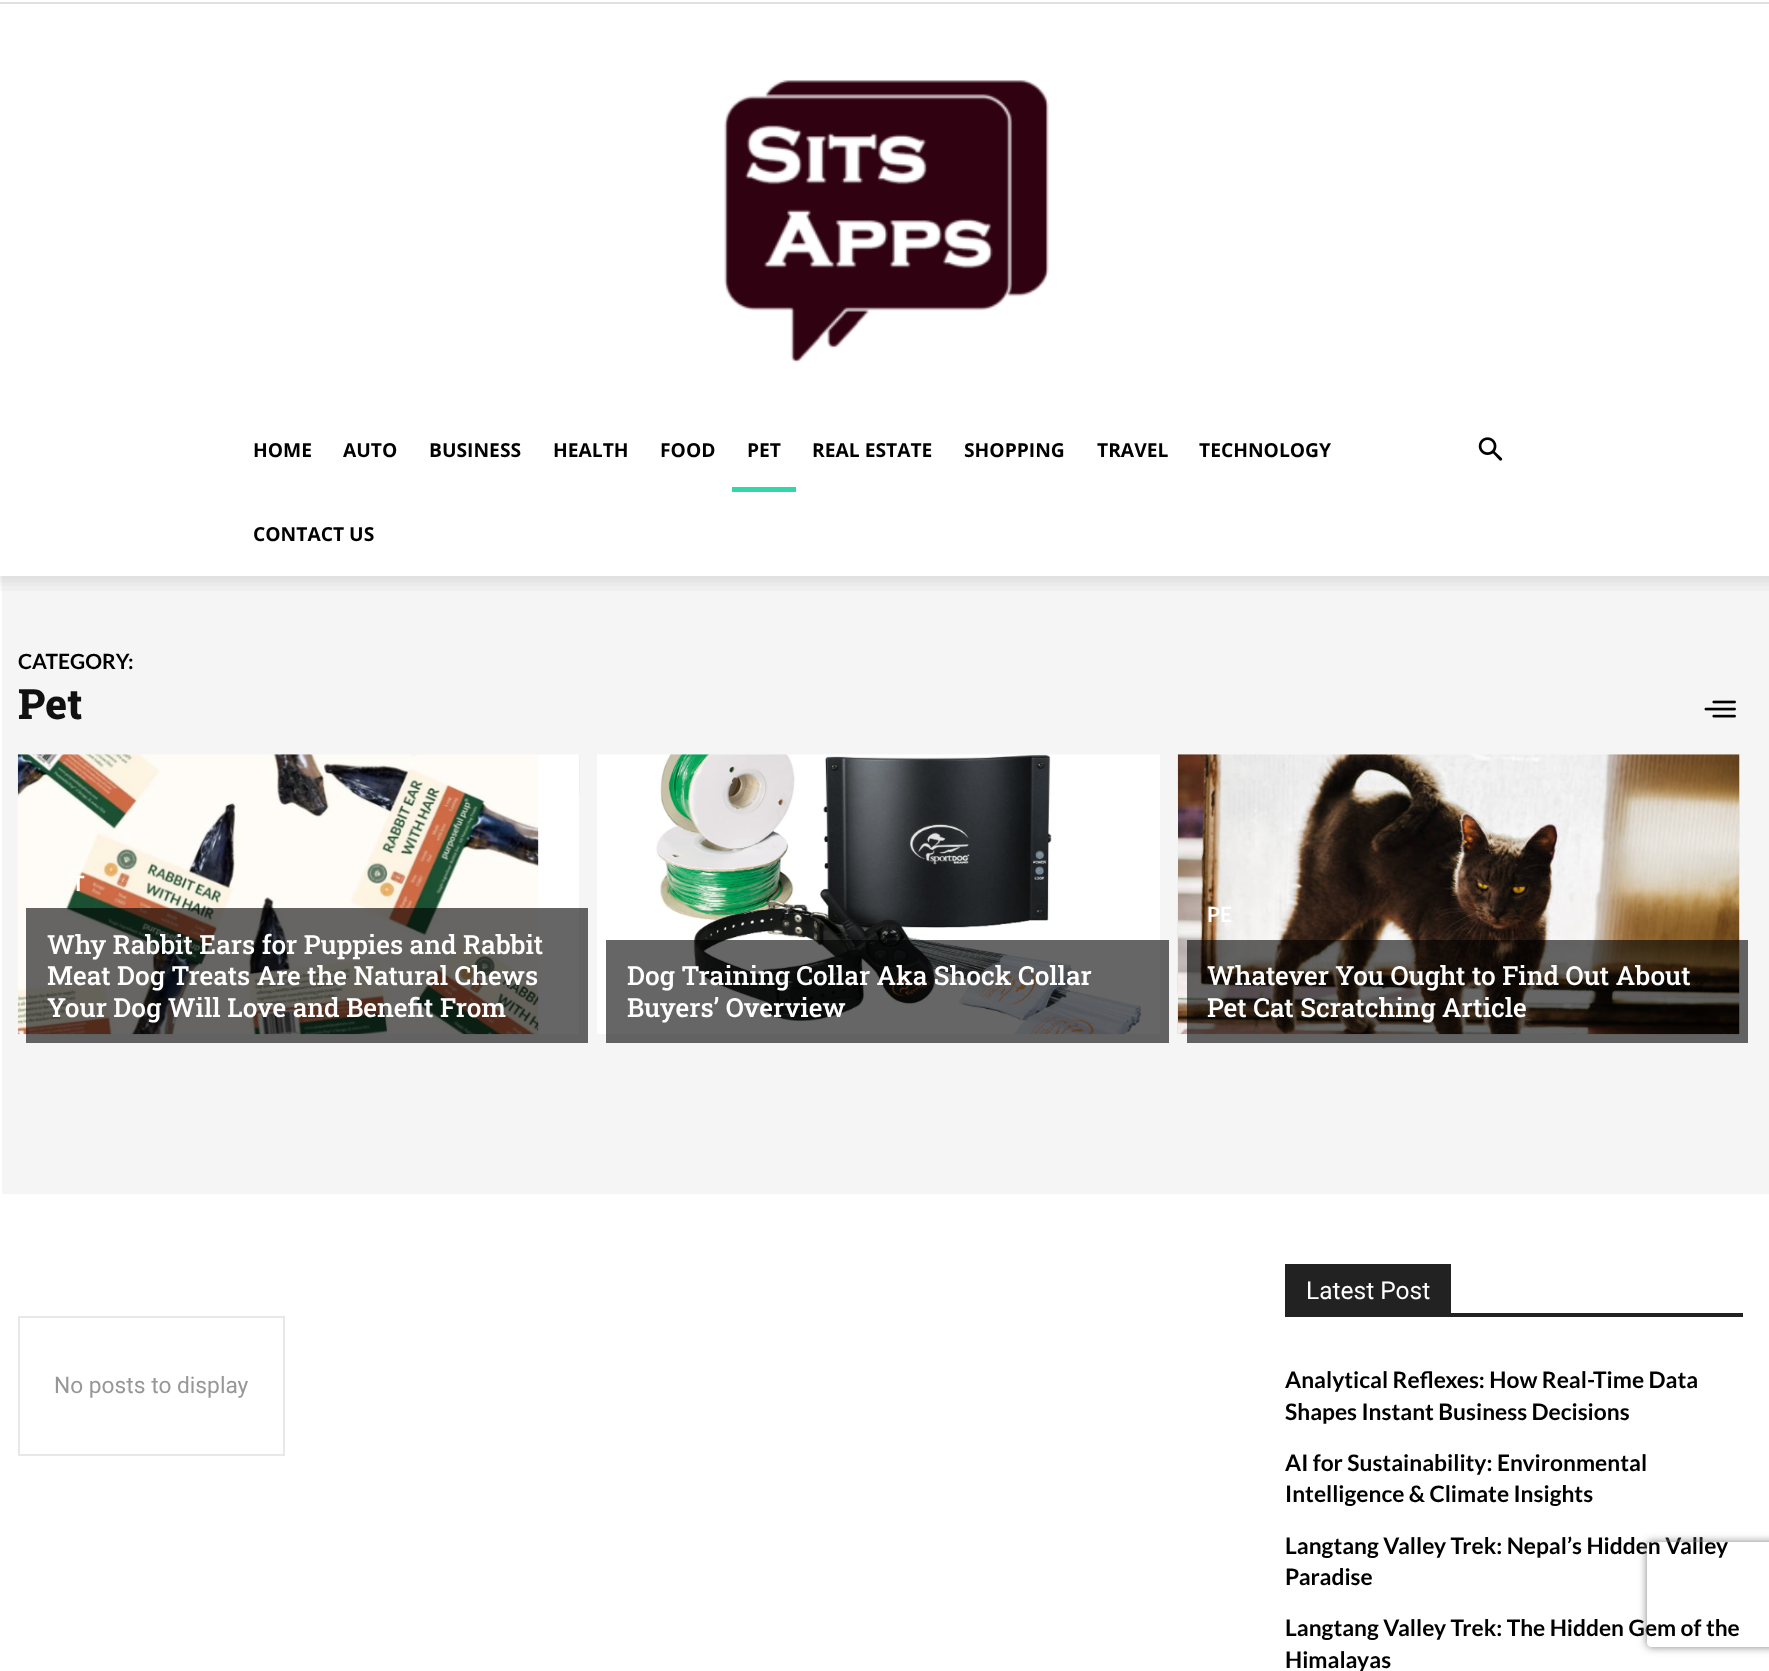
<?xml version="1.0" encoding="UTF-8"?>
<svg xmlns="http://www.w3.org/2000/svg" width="1769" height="1671">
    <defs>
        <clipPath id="clip1"><path d="M 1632 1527 H 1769 V 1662 H 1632 Z M 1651 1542 H 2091 C 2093 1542 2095 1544 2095 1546 V 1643 C 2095 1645 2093 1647 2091 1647 H 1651 C 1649 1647 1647 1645 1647 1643 V 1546 C 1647 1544 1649 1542 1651 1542 Z" clip-rule="evenodd"/></clipPath>
        <filter id="blur1" x="-50%" y="-200%" width="200%" height="500%"><feGaussianBlur stdDeviation="4.5"/></filter>
    </defs>
    <rect width="100%" height="100%" fill="#FFFFFF"/>
    <rect x="0" y="2" width="1769" height="2" fill="#E0E0E0"/>
    <image x="724" y="80" width="325" height="283" href="img_01.png"/>
    <text x="253" y="457" font-family="Open Sans" font-size="19.25" font-weight="700" fill="#000000">HOME</text>
    <text x="343" y="457" font-family="Open Sans" font-size="19.25" font-weight="700" fill="#000000">AUTO</text>
    <text x="429" y="457" font-family="Open Sans" font-size="19.25" font-weight="700" fill="#000000">BUSINESS</text>
    <text x="553" y="457" font-family="Open Sans" font-size="19.25" font-weight="700" fill="#000000">HEALTH</text>
    <text x="660" y="457" font-family="Open Sans" font-size="19.25" font-weight="700" fill="#000000">FOOD</text>
    <text x="747" y="457" font-family="Open Sans" font-size="19.25" font-weight="700" fill="#000000">PET</text>
    <rect x="732" y="487" width="64" height="5" fill="#31D6AA"/>
    <text x="812" y="457" font-family="Open Sans" font-size="19.25" font-weight="700" fill="#000000">REAL ESTATE</text>
    <text x="964" y="457" font-family="Open Sans" font-size="19.25" font-weight="700" fill="#000000">SHOPPING</text>
    <text x="1097" y="457" font-family="Open Sans" font-size="19.25" font-weight="700" fill="#000000">TRAVEL</text>
    <text x="1199" y="457" font-family="Open Sans" font-size="19.25" font-weight="700" fill="#000000">TECHNOLOGY</text>
    <text x="253" y="541" font-family="Open Sans" font-size="19.25" font-weight="700" fill="#000000">CONTACT US</text>
    <image x="1478" y="437" width="25" height="24" href="img_02.png"/>
    <rect x="2" y="576" width="1767" height="618" fill="#F5F5F5"/>
    <image x="0" y="576" width="1769" height="15" href="img_03.png"/>
    <text x="18" y="669" font-family="Lato" font-size="21" font-weight="700" fill="#000000">CATEGORY:</text>
    <text x="18" y="719" font-family="Roboto Slab" font-size="42" font-weight="800" fill="#111111">Pet</text>
    <image x="1704" y="700" width="32" height="18" href="img_04.png"/>
    <image x="17" y="754" width="563" height="281" href="img_05.png"/>
    <rect x="26" y="908" width="562" height="135" fill="#000000" fill-opacity="0.6"/>
    <text x="72" y="891" font-family="Lato" font-size="21" font-weight="700" fill="#FFFFFF">T</text>
    <text font-family="Roboto Slab" font-size="26.25" font-weight="500" fill="#FFFFFF">
        <tspan x="47" y="954">Why Rabbit Ears for Puppies and Rabbit</tspan>
        <tspan x="47" y="985">Meat Dog Treats Are the Natural Chews</tspan>
        <tspan x="47" y="1017">Your Dog Will Love and Benefit From</tspan>
    </text>
    <image x="597" y="754" width="563" height="281" href="img_06.png"/>
    <rect x="606" y="940" width="563" height="103" fill="#000000" fill-opacity="0.6"/>
    <text font-family="Roboto Slab" font-size="26.25" font-weight="500" fill="#FFFFFF">
        <tspan x="627" y="985">Dog Training Collar Aka Shock Collar</tspan>
        <tspan x="627" y="1017">Buyers’ Overview</tspan>
    </text>
    <image x="1177" y="754" width="563" height="281" href="img_07.png"/>
    <rect x="1187" y="940" width="561" height="103" fill="#000000" fill-opacity="0.6"/>
    <text x="1207" y="922" font-family="Lato" font-size="21" font-weight="700" fill="#FFFFFF">PE</text>
    <text font-family="Roboto Slab" font-size="26.25" font-weight="500" fill="#FFFFFF">
        <tspan x="1207" y="985">Whatever You Ought to Find Out About</tspan>
        <tspan x="1207" y="1017">Pet Cat Scratching Article</tspan>
    </text>
    <rect x="19" y="1317" width="265" height="138" fill="none" stroke="#E8E8E8" stroke-width="2"/>
    <text x="54" y="1393" font-family="Roboto" font-size="22.75" fill="#979797">No posts to display</text>
    <rect x="1285" y="1313" width="458" height="4" fill="#222222"/>
    <rect x="1285" y="1264" width="166" height="49" fill="#222222"/>
    <text x="1306" y="1299" font-family="Roboto" font-size="24.5" fill="#FFFFFF">Latest Post</text>
    <text font-family="Lato" font-size="22.75" font-weight="700" fill="#000000">
        <tspan x="1285" y="1388">Analytical Reflexes: How Real-Time Data</tspan>
        <tspan x="1285" y="1420">Shapes Instant Business Decisions</tspan>
    </text>
    <text font-family="Lato" font-size="22.75" font-weight="700" fill="#000000">
        <tspan x="1285" y="1471">AI for Sustainability: Environmental</tspan>
        <tspan x="1285" y="1502">Intelligence &amp; Climate Insights</tspan>
    </text>
    <text font-family="Lato" font-size="22.75" font-weight="700" fill="#000000">
        <tspan x="1285" y="1554">Langtang Valley Trek: Nepal’s Hidden Valley</tspan>
        <tspan x="1285" y="1585">Paradise</tspan>
    </text>
    <text font-family="Lato" font-size="22.75" font-weight="700" fill="#000000">
        <tspan x="1285" y="1636">Langtang Valley Trek: The Hidden Gem of the</tspan>
        <tspan x="1285" y="1668">Himalayas</tspan>
    </text>
    <g clip-path="url(#clip1)">
        <rect x="1647" y="1542" width="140" height="105" rx="4" fill="#808080" filter="url(#blur1)"/>
    </g>
</svg>
